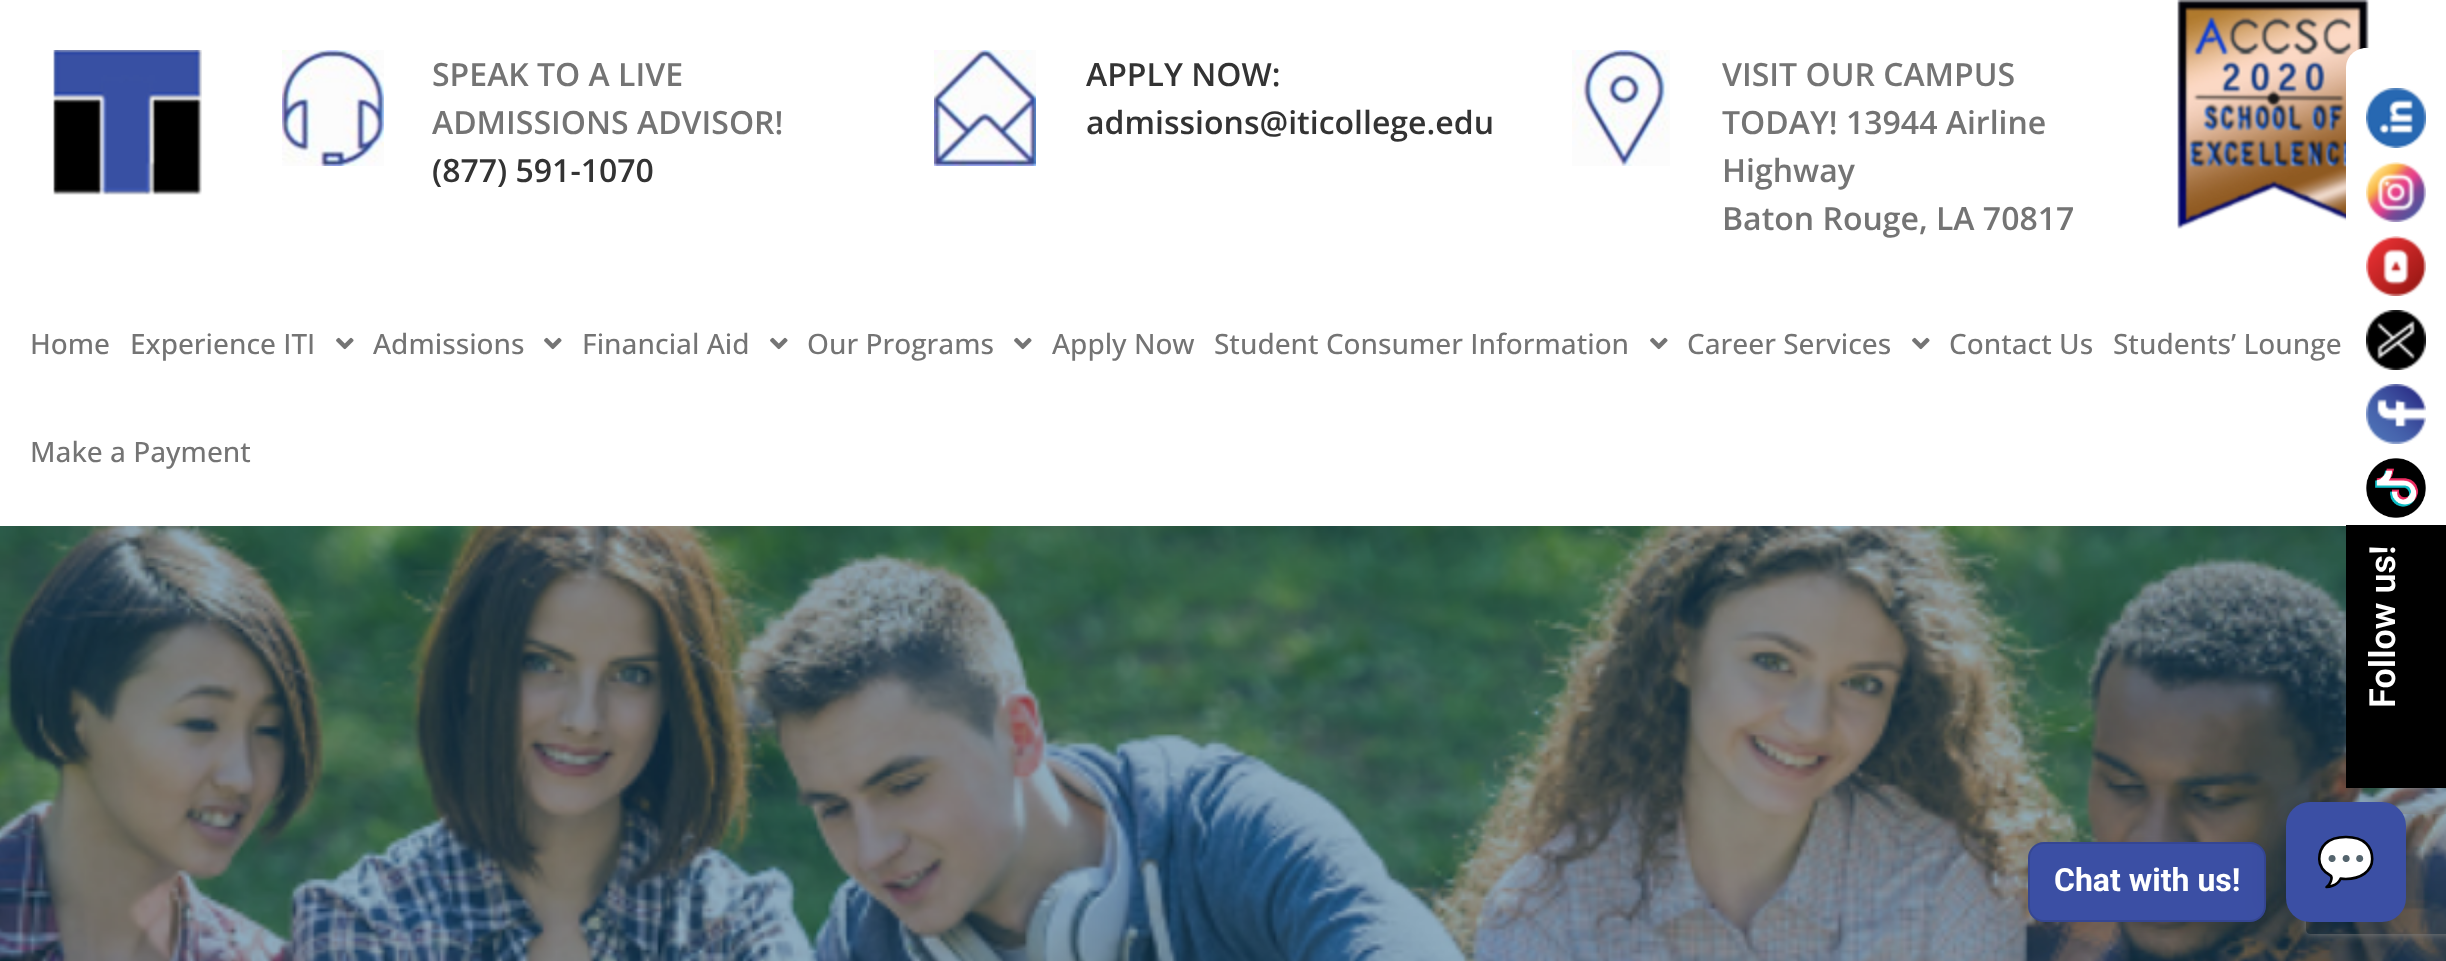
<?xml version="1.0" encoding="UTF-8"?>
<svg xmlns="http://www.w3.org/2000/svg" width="2446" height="961">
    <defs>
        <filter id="blur1" x="-50%" y="-200%" width="200%" height="500%"><feGaussianBlur stdDeviation="8"/></filter>
        <filter id="blur2" x="-50%" y="-200%" width="200%" height="500%"><feGaussianBlur stdDeviation="20"/></filter>
        <clipPath id="clip1"><rect x="2346" y="48" width="100" height="740"/></clipPath>
        <clipPath id="clip2"><path d="M 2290 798 H 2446 V 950 H 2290 Z M 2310 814 H 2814 C 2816 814 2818 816 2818 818 V 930 C 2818 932 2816 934 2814 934 H 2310 C 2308 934 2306 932 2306 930 V 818 C 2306 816 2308 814 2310 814 Z" clip-rule="evenodd"/></clipPath>
        <filter id="blur3" x="-50%" y="-200%" width="200%" height="500%"><feGaussianBlur stdDeviation="5"/></filter>
    </defs>
    <rect width="100%" height="100%" fill="#FFFFFF"/>
    <image x="53" y="50" width="149" height="145" href="img_01.png"/>
    <image x="282" y="50" width="102" height="116" href="img_02.png"/>
    <text font-family="Open Sans" font-size="32" font-weight="600" fill="#747474">
        <tspan x="432" y="86">SPEAK TO A LIVE</tspan>
        <tspan x="432" y="134">ADMISSIONS ADVISOR!</tspan>
    </text>
    <text x="432" y="182" font-family="Open Sans" font-size="32" font-weight="600" fill="#333333">(877) 591-1070</text>
    <image x="934" y="50" width="102" height="116" href="img_03.png"/>
    <text font-family="Open Sans" font-size="32" font-weight="600" fill="#333333">
        <tspan x="1086" y="86">APPLY NOW:</tspan>
        <tspan x="1086" y="134">admissions@iticollege.edu</tspan>
    </text>
    <image x="1572" y="50" width="98" height="116" href="img_04.png"/>
    <text font-family="Open Sans" font-size="32" font-weight="600" fill="#747474">
        <tspan x="1722" y="86">VISIT OUR CAMPUS</tspan>
        <tspan x="1722" y="134">TODAY! 13944 Airline</tspan>
        <tspan x="1722" y="182">Highway</tspan>
        <tspan x="1722" y="230">Baton Rouge, LA 70817</tspan>
    </text>
    <image x="2177" y="0" width="192" height="229" href="img_05.png"/>
    <text x="30" y="354" font-family="Open Sans" font-size="28" font-weight="500" fill="#747474">Home</text>
    <text x="130" y="354" font-family="Open Sans" font-size="28" font-weight="500" fill="#747474">Experience ITI</text>
    <image x="336" y="337" width="18" height="13" href="img_06.png"/>
    <text x="373" y="354" font-family="Open Sans" font-size="28" font-weight="500" fill="#747474">Admissions</text>
    <image x="544" y="337" width="18" height="13" href="img_06.png"/>
    <text x="582" y="354" font-family="Open Sans" font-size="28" font-weight="500" fill="#747474">Financial Aid</text>
    <image x="770" y="337" width="18" height="13" href="img_06.png"/>
    <text x="807" y="354" font-family="Open Sans" font-size="28" font-weight="500" fill="#747474">Our Programs</text>
    <image x="1014" y="337" width="18" height="13" href="img_06.png"/>
    <text x="1052" y="354" font-family="Open Sans" font-size="28" font-weight="500" fill="#747474">Apply Now</text>
    <text x="1214" y="354" font-family="Open Sans" font-size="28" font-weight="500" fill="#747474">Student Consumer Information</text>
    <image x="1650" y="337" width="18" height="13" href="img_06.png"/>
    <text x="1687" y="354" font-family="Open Sans" font-size="28" font-weight="500" fill="#747474">Career Services</text>
    <image x="1912" y="337" width="18" height="13" href="img_06.png"/>
    <text x="1949" y="354" font-family="Open Sans" font-size="28" font-weight="500" fill="#747474">Contact Us</text>
    <text x="2113" y="354" font-family="Open Sans" font-size="28" font-weight="500" fill="#747474">Students’ Lounge</text>
    <text x="30" y="462" font-family="Open Sans" font-size="28" font-weight="500" fill="#747474">Make a Payment</text>
    <image x="0" y="526" width="2446" height="435" href="img_07.png"/>
    <path d="M 2366 48 H 2446 V 628 H 2346 V 68 C 2346 57 2355 48 2366 48 Z" fill="#FFFFFF"/>
    <image x="2366" y="88" width="60" height="60" href="img_08.png"/>
    <image x="2366" y="162" width="60" height="60" href="img_09.png"/>
    <image x="2366" y="236" width="60" height="60" href="img_10.png"/>
    <image x="2366" y="310" width="60" height="60" href="img_11.png"/>
    <image x="2366" y="384" width="60" height="60" href="img_12.png"/>
    <image x="2366" y="458" width="60" height="60" href="img_13.png"/>
    <rect x="2028" y="846" width="238" height="80" rx="16" fill="#000000" fill-opacity="0.1" filter="url(#blur1)"/>
    <rect x="2028" y="842" width="238" height="80" rx="16" fill="#3B4FA4"/>
    <rect x="2029" y="843" width="236" height="78" rx="15" fill="none" stroke="#000000" stroke-opacity="0.1" stroke-width="2"/>
    <rect x="2286" y="810" width="120" height="120" rx="24" fill="#000000" fill-opacity="0.15" filter="url(#blur2)"/>
    <g clip-path="url(#clip1)">
        <path d="M 2345 823 V 525 H 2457 V 823 C 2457 834 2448 843 2437 843 H 2365 C 2354 843 2345 834 2345 823 Z" fill="#000000"/>
    </g>
    <text x="2395" y="708" transform="rotate(-90 2395 708)" font-family="Roboto" font-size="36" font-weight="600" fill="#FFFFFF">Follow us!</text>
    <g clip-path="url(#clip2)">
        <rect x="2306" y="814" width="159" height="120" rx="4" fill="#808080" filter="url(#blur3)"/>
    </g>
    <text x="2054" y="891" font-family="Roboto" font-size="32" font-weight="700" fill="#FFFFFF">Chat with us!</text>
    <rect x="2286" y="802" width="120" height="120" rx="24" fill="#3B4FA4"/>
    <text x="2316" y="878" font-family="Noto Color Emoji" font-size="48" fill="#FFFFFF">💬</text>
</svg>
